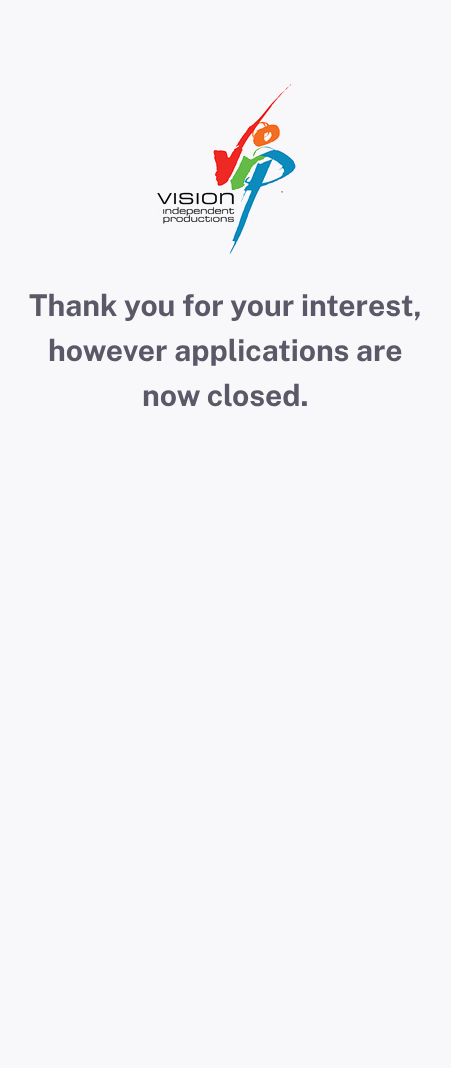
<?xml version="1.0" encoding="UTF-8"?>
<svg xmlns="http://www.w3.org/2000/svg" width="451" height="1068">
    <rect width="100%" height="100%" fill="#F8F7FA"/>
    <image x="157" y="84" width="144" height="170" href="img_01.png"/>
    <text x="29" y="316" font-family="Public Sans" font-size="30" font-weight="700" fill="#5B5867">Thank you for your interest,</text>
    <text x="48" y="361" font-family="Public Sans" font-size="30" font-weight="700" fill="#5B5867">however applications are</text>
    <text x="142" y="406" font-family="Public Sans" font-size="30" font-weight="700" fill="#5B5867">now closed.</text>
</svg>
